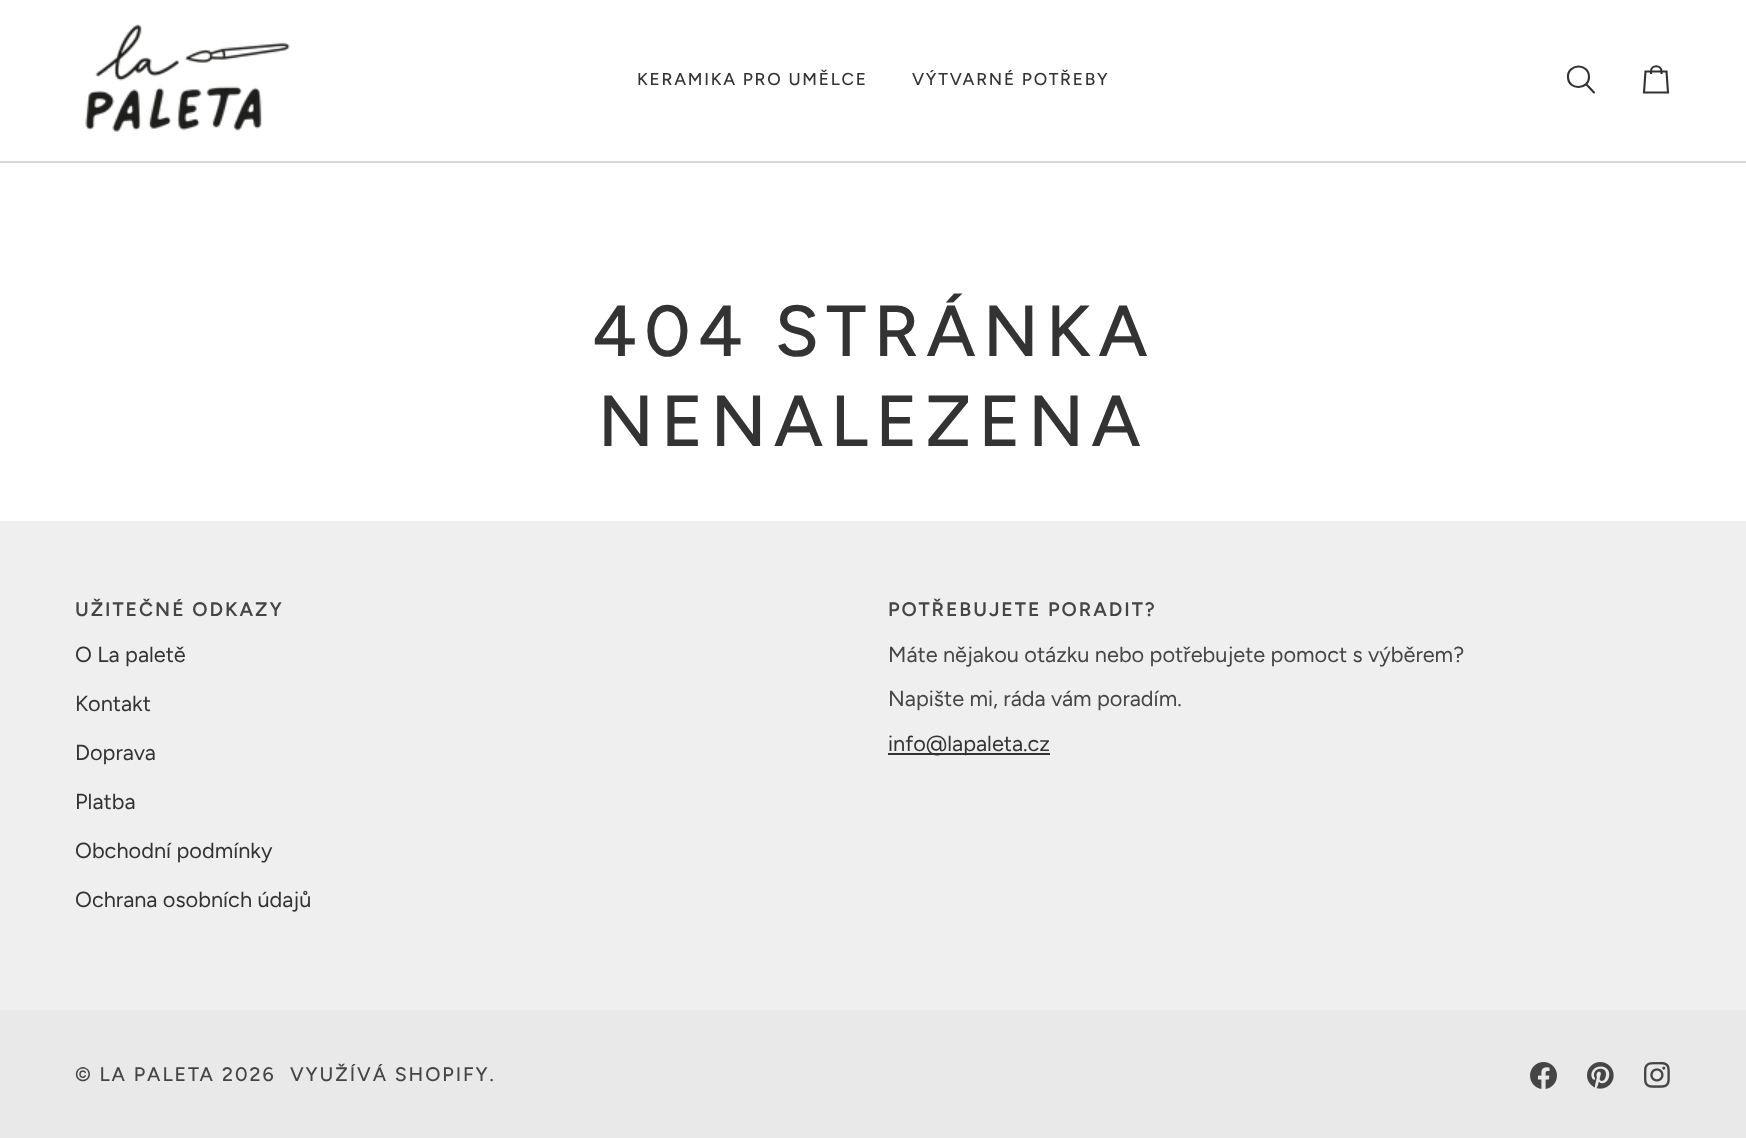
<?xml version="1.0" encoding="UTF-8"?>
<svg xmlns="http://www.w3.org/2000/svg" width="1746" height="1138">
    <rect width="100%" height="100%" fill="#FFFFFF"/>
    <rect x="0" y="161" width="1746" height="2" fill="#D7D7D7"/>
    <image x="85" y="24" width="205" height="108" href="img_01.png"/>
    <text x="637" y="85" font-family="Figtree" font-size="17.25" font-weight="500" letter-spacing="1.75" fill="#333333">KERAMIKA PRO UMĚLCE</text>
    <text x="912" y="85" font-family="Figtree" font-size="17.25" font-weight="500" letter-spacing="1.75" fill="#333333">VÝTVARNÉ POTŘEBY</text>
    <path d="M 1589 77 C 1589 90 1568.5 90.5 1568 77.5 C 1567 63.5 1589 62.5 1589 77 Z M 1594 92.5 L 1586 84 Z" fill="none" stroke="#333333" stroke-width="2.1" stroke-linecap="round" stroke-linejoin="round"/>
    <path d="M 1661.5 74 V 71.5 H 1666.5 L 1668 92.5 H 1644 L 1645.5 71.5 H 1651 C 1651 64.5 1661.5 64.5 1661.5 71.5 H 1651 V 74" fill="none" stroke="#333333" stroke-width="2.1"/>
    <text x="592" y="356" font-family="Figtree" font-size="72" font-weight="500" letter-spacing="7.25" fill="#333333">404 STRÁNKA</text>
    <text x="598" y="446" font-family="Figtree" font-size="72" font-weight="500" letter-spacing="7.25" fill="#333333">NENALEZENA</text>
    <rect x="0" y="521" width="1746" height="489" fill="#EFEFEF"/>
    <text x="75" y="616" font-family="Figtree" font-size="19.5" font-weight="600" letter-spacing="1.95" fill="#454545">UŽITEČNÉ ODKAZY</text>
    <text x="75" y="662" font-family="Figtree" font-size="21.75" fill="#333333">O La paletě</text>
    <text x="75" y="711" font-family="Figtree" font-size="21.75" fill="#333333">Kontakt</text>
    <text x="75" y="760" font-family="Figtree" font-size="21.75" fill="#333333">Doprava</text>
    <text x="75" y="809" font-family="Figtree" font-size="21.75" fill="#333333">Platba</text>
    <text x="75" y="858" font-family="Figtree" font-size="21.75" fill="#333333">Obchodní podmínky</text>
    <text x="75" y="907" font-family="Figtree" font-size="21.75" fill="#333333">Ochrana osobních údajů</text>
    <text x="888" y="616" font-family="Figtree" font-size="19.5" font-weight="600" letter-spacing="1.95" fill="#454545">POTŘEBUJETE PORADIT?</text>
    <text x="888" y="662" font-family="Figtree" font-size="21.75" fill="#454545">Máte nějakou otázku nebo potřebujete pomoct s výběrem?</text>
    <text x="888" y="706" font-family="Figtree" font-size="21.75" fill="#454545">Napište mi, ráda vám poradím.</text>
    <rect x="888" y="753" width="162" height="2" fill="#333333"/>
    <text x="888" y="751" font-family="Figtree" font-size="21.75" fill="#333333">info@lapaleta.cz</text>
    <rect x="0" y="1010" width="1746" height="128" fill="#E9E9E9"/>
    <text x="75" y="1081" font-family="Figtree" font-size="19.5" font-weight="500" letter-spacing="1.95" fill="#454545">© LA PALETA</text>
    <text x="222" y="1081" font-family="Figtree" font-size="19.5" font-weight="500" letter-spacing="1.95" fill="#454545">2026</text>
    <text x="290" y="1081" font-family="Figtree" font-size="19.5" font-weight="500" letter-spacing="1.95" fill="#454545">VYUŽÍVÁ SHOPIFY.</text>
    <image x="1530" y="1062" width="27" height="27" href="img_02.png"/>
    <image x="1587" y="1062" width="27" height="27" href="img_03.png"/>
    <image x="1644" y="1062" width="26" height="26" href="img_04.png"/>
</svg>
